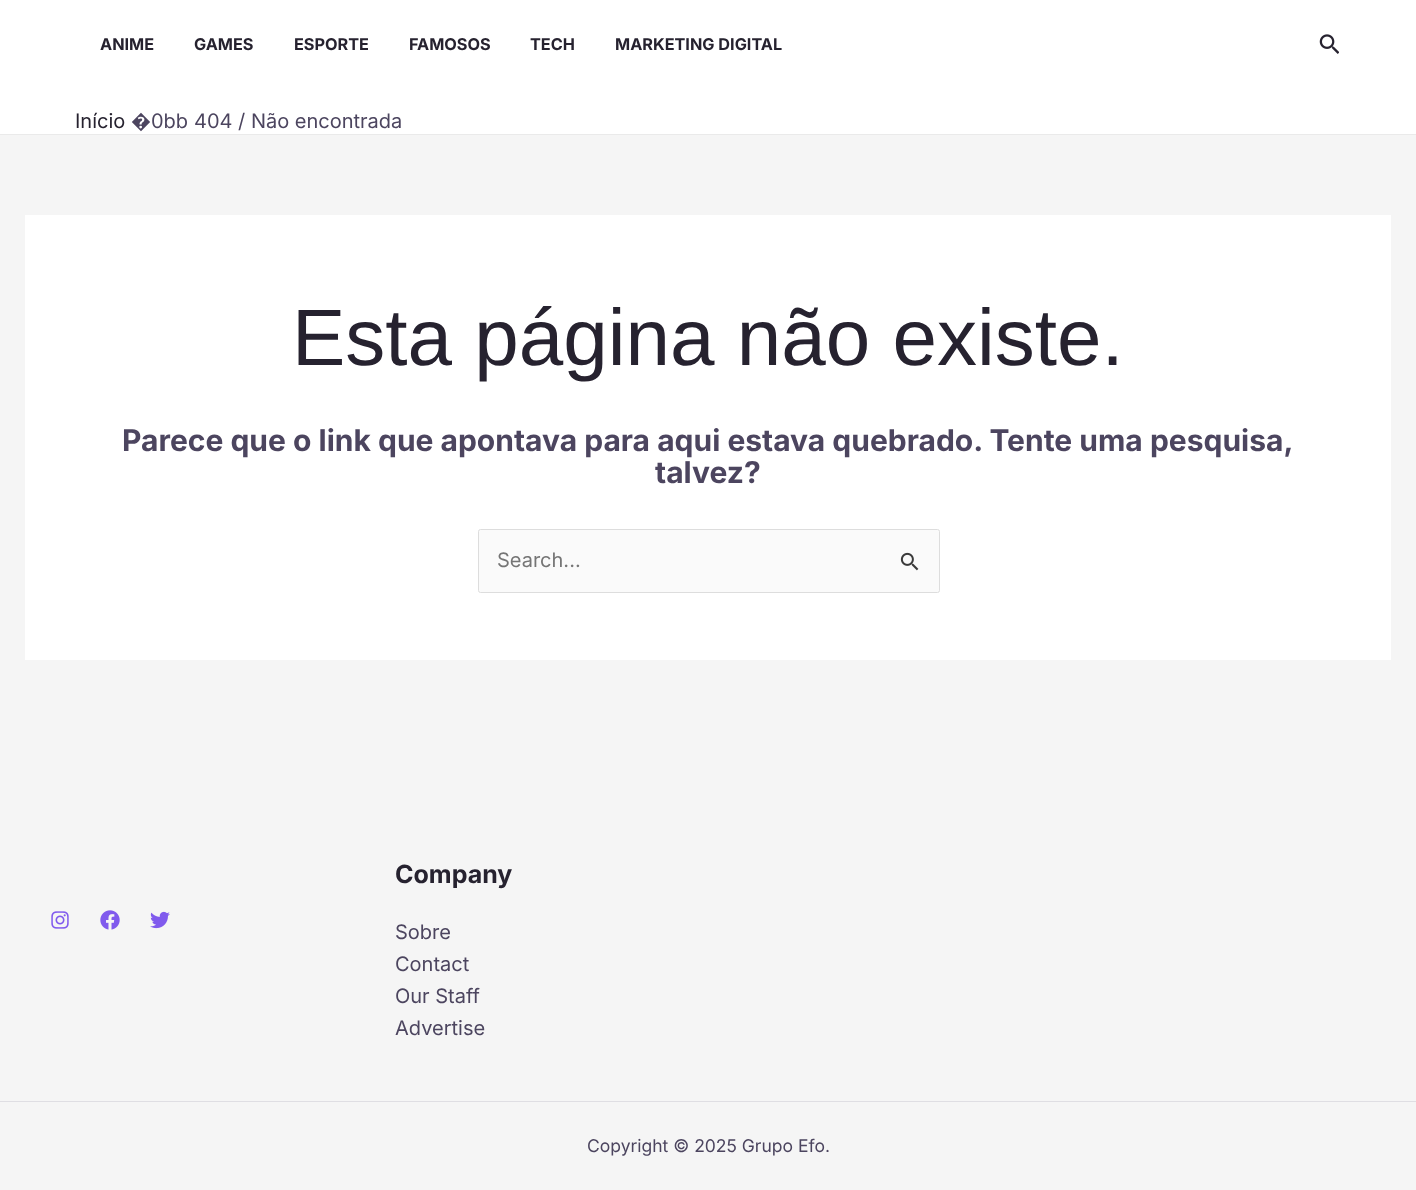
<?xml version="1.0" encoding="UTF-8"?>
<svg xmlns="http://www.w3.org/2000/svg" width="1416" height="1190">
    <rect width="100%" height="100%" fill="#F5F5F5"/>
    <rect x="0" y="0" width="1416" height="134" fill="#FFFFFF"/>
    <rect x="0" y="134" width="1416" height="1" fill="#EAEAEA"/>
    <text x="100" y="50" font-family="Inter" font-size="16.25" font-weight="700" fill="#26222F">ANIME</text>
    <text x="194" y="50" font-family="Inter" font-size="16.25" font-weight="700" fill="#26222F">GAMES</text>
    <text x="294" y="50" font-family="Inter" font-size="16.25" font-weight="700" fill="#26222F">ESPORTE</text>
    <text x="409" y="50" font-family="Inter" font-size="16.25" font-weight="700" fill="#26222F">FAMOSOS</text>
    <text x="530" y="50" font-family="Inter" font-size="16.25" font-weight="700" fill="#26222F">TECH</text>
    <text x="615" y="50" font-family="Inter" font-size="16.25" font-weight="700" fill="#26222F">MARKETING DIGITAL</text>
    <image x="1319" y="34" width="20" height="20" href="img_01.png"/>
    <text x="75" y="128" font-family="Inter" font-size="20" fill="#26222F">Início</text>
    <text x="131" y="128" font-family="Noto Sans" font-size="20" fill="#4C455F">�</text>
    <text x="151" y="128" font-family="Inter" font-size="20" fill="#4C455F">0bb</text>
    <text x="194" y="128" font-family="Inter" font-size="20" fill="#4C455F">404 / Não encontrada</text>
    <rect x="25" y="215" width="1366" height="445" fill="#FFFFFF"/>
    <text x="292" y="365" font-family="Liberation Sans" font-size="80" fill="#26222F">Esta página não existe.</text>
    <text x="122" y="451" font-family="Inter" font-size="30" font-weight="700" fill="#4C455F">Parece que o link que apontava para aqui estava quebrado. Tente uma pesquisa,</text>
    <text x="655" y="483" font-family="Inter" font-size="30" font-weight="700" fill="#4C455F">talvez?</text>
    <rect x="478.5" y="529.5" width="461" height="63" rx="2" fill="#FAFAFA" stroke="#DDDDDD"/>
    <text x="497" y="567" font-family="Inter" font-size="20" fill="#757575">Search...</text>
    <image x="900" y="552" width="19" height="19" href="img_02.png"/>
    <image x="51" y="911" width="18" height="18" href="img_03.png"/>
    <image x="100" y="910" width="20" height="20" href="img_04.png"/>
    <image x="150" y="911" width="20" height="18" href="img_05.png"/>
    <text x="395" y="883" font-family="Inter" font-size="25" font-weight="700" fill="#26222F">Company</text>
    <text font-family="Inter" font-size="20" fill="#4C455F">
        <tspan x="395" y="939">Sobre</tspan>
        <tspan x="395" y="971">Contact</tspan>
        <tspan x="395" y="1003">Our Staff</tspan>
        <tspan x="395" y="1035">Advertise</tspan>
    </text>
    <rect x="0" y="1101" width="1416" height="1" fill="#DFDEE3"/>
    <text x="587" y="1152" font-family="Inter" font-size="17.5" fill="#4C455F">Copyright © 2025 Grupo Efo.</text>
</svg>
